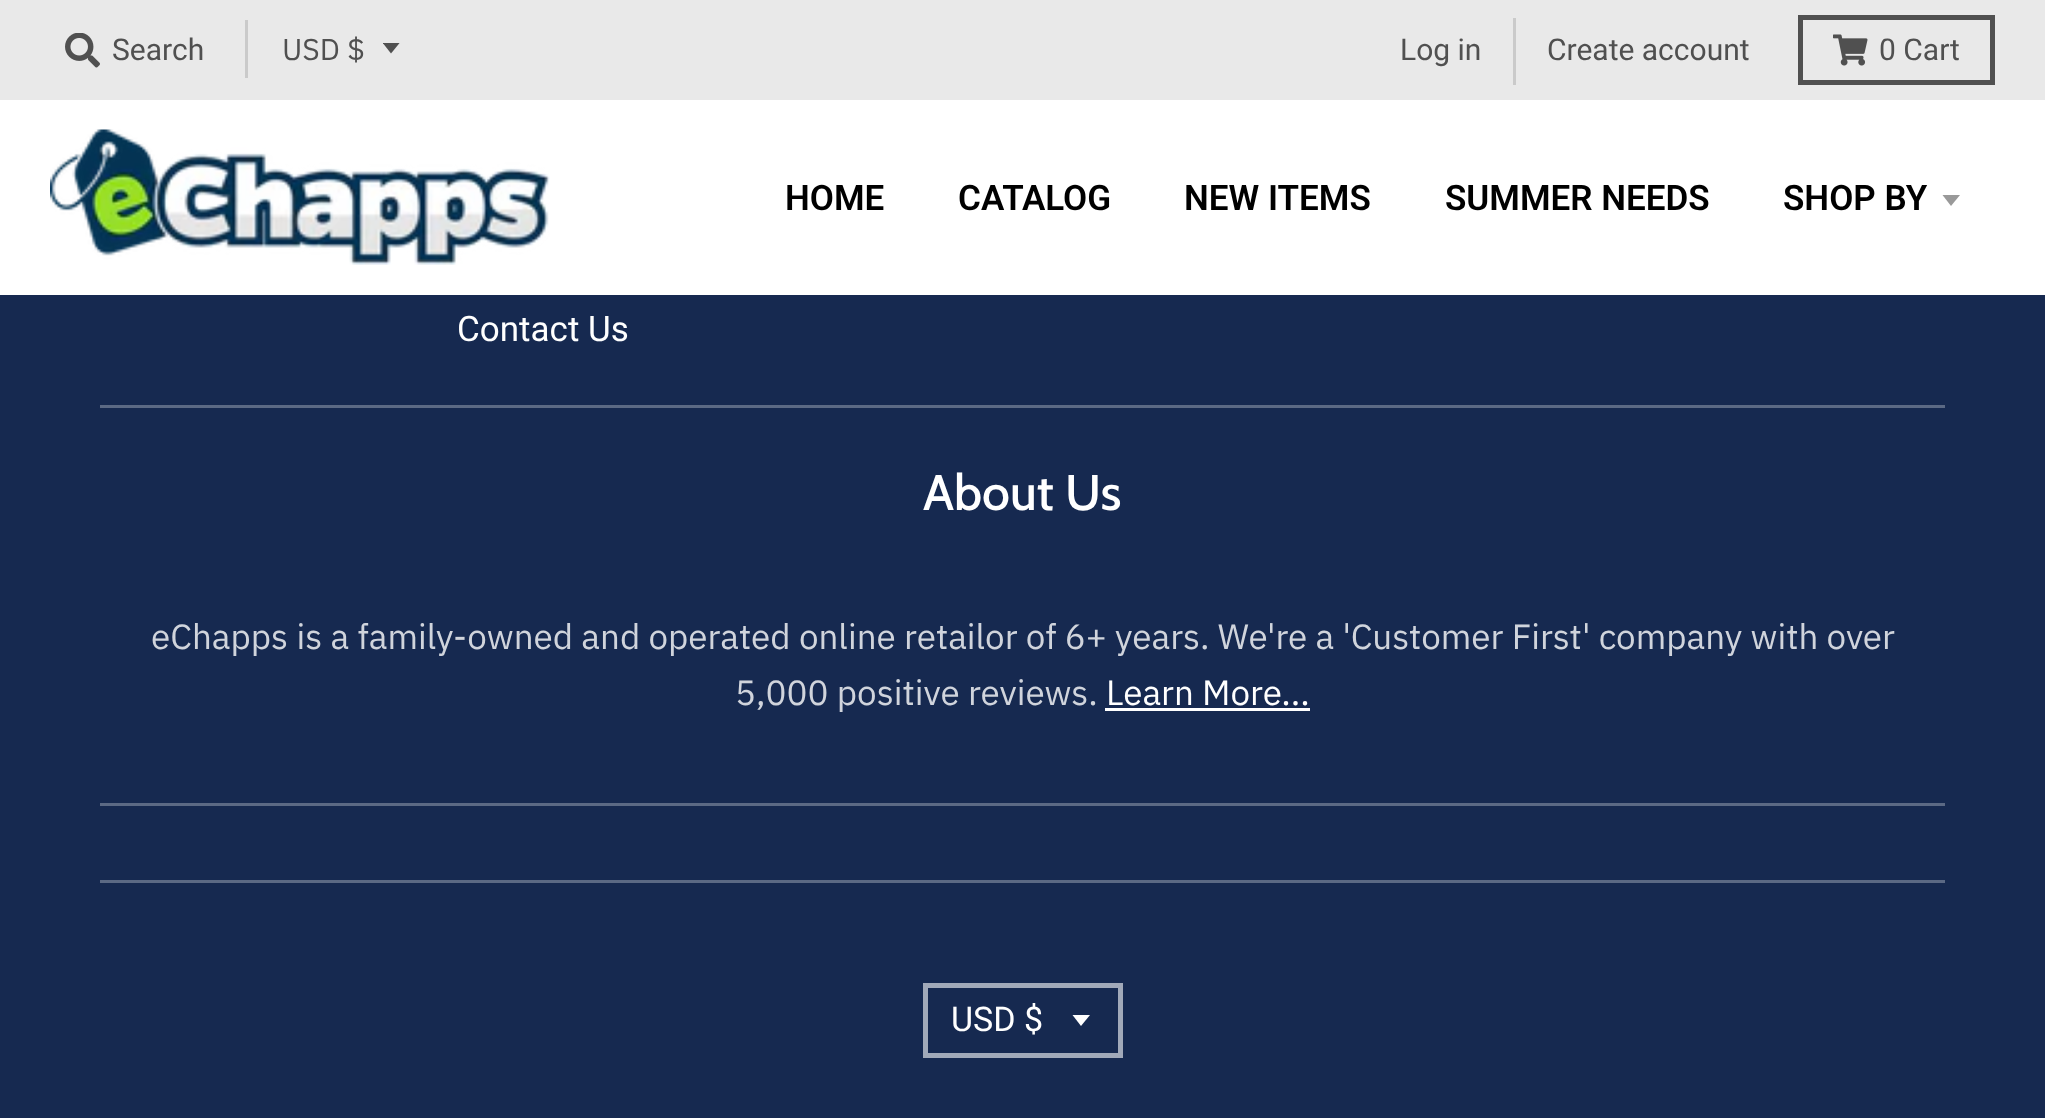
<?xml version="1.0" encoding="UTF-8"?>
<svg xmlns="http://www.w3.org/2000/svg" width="2045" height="1118">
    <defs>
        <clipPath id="clip1"><rect x="383" y="43" width="20" height="12"/></clipPath>
    </defs>
    <rect width="100%" height="100%" fill="#162950"/>
    <rect x="0" y="0" width="2045" height="100" fill="#E9E9E9"/>
    <image x="65" y="33" width="35" height="35" href="img_01.png"/>
    <text x="112" y="60" font-family="Roboto" font-size="30" fill="#505050">Search</text>
    <rect x="245" y="20" width="3" height="58" fill="#CACACA"/>
    <g clip-path="url(#clip1)">
        <path d="M 382.5 42.5 L 391 53.5 L 400 42.5 Z" fill="#505050"/>
    </g>
    <text x="282" y="60" font-family="IBM Plex Sans" font-size="30" fill="#505050">USD $</text>
    <rect x="1513" y="18" width="3" height="67" fill="#CACACA"/>
    <text x="1400" y="60" font-family="Roboto" font-size="30" fill="#505050">Log in</text>
    <text x="1547" y="60" font-family="Roboto" font-size="30" fill="#505050">Create account</text>
    <rect x="1800.5" y="17.5" width="192" height="65" fill="none" stroke="#505050" stroke-width="5"/>
    <image x="1833" y="34" width="35" height="32" href="img_02.png"/>
    <text x="1879" y="60" font-family="Roboto" font-size="30" fill="#505050">0 Cart</text>
    <rect x="0" y="100" width="2045" height="195" fill="#FFFFFF"/>
    <image x="50" y="129" width="500" height="136" href="img_03.png"/>
    <text x="785" y="210" font-family="Roboto" font-size="35" font-weight="600" fill="#000000">HOME</text>
    <text x="958" y="210" font-family="Roboto" font-size="35" font-weight="600" fill="#000000">CATALOG</text>
    <text x="1184" y="210" font-family="Roboto" font-size="35" font-weight="600" fill="#000000">NEW ITEMS</text>
    <text x="1445" y="210" font-family="Roboto" font-size="35" font-weight="600" fill="#000000">SUMMER NEEDS</text>
    <text x="1783" y="210" font-family="Roboto" font-size="35" font-weight="600" fill="#000000">SHOP BY</text>
    <path d="M 1942.5 195 L 1951 206 L 1960 195 Z" fill="#999999"/>
    <text x="457" y="341" font-family="Roboto" font-size="35" fill="#FFFFFF">Contact Us</text>
    <rect x="100" y="405" width="1845" height="3" fill="#5B6984"/>
    <text x="923" y="510" font-family="Cabin" font-size="50" font-weight="500" fill="#FFFFFF">About Us</text>
    <text x="151" y="649" font-family="IBM Plex Sans" font-size="35" fill="#D0D4DC">eChapps is a family-owned and operated online retailor of 6+ years. We're a 'Customer First' company with over</text>
    <text x="735" y="705" font-family="IBM Plex Sans" font-size="35" fill="#D0D4DC">5,000 positive reviews.</text>
    <text x="1106" y="705" font-family="IBM Plex Sans" font-size="35" fill="#FFFFFF">Learn More...</text>
    <rect x="1105" y="708" width="205" height="3" fill="#FFFFFF"/>
    <rect x="100" y="803" width="1845" height="3" fill="#5B6984"/>
    <rect x="100" y="880" width="1845" height="3" fill="#5B6984"/>
    <path d="M 1072.5 1015 L 1081 1026 L 1090 1015 Z" fill="#FFFFFF"/>
    <rect x="925.5" y="985.5" width="195" height="70" fill="none" stroke="#A1A9B9" stroke-width="5"/>
    <text x="951" y="1031" font-family="Roboto" font-size="34" fill="#FFFFFF">USD $</text>
</svg>
